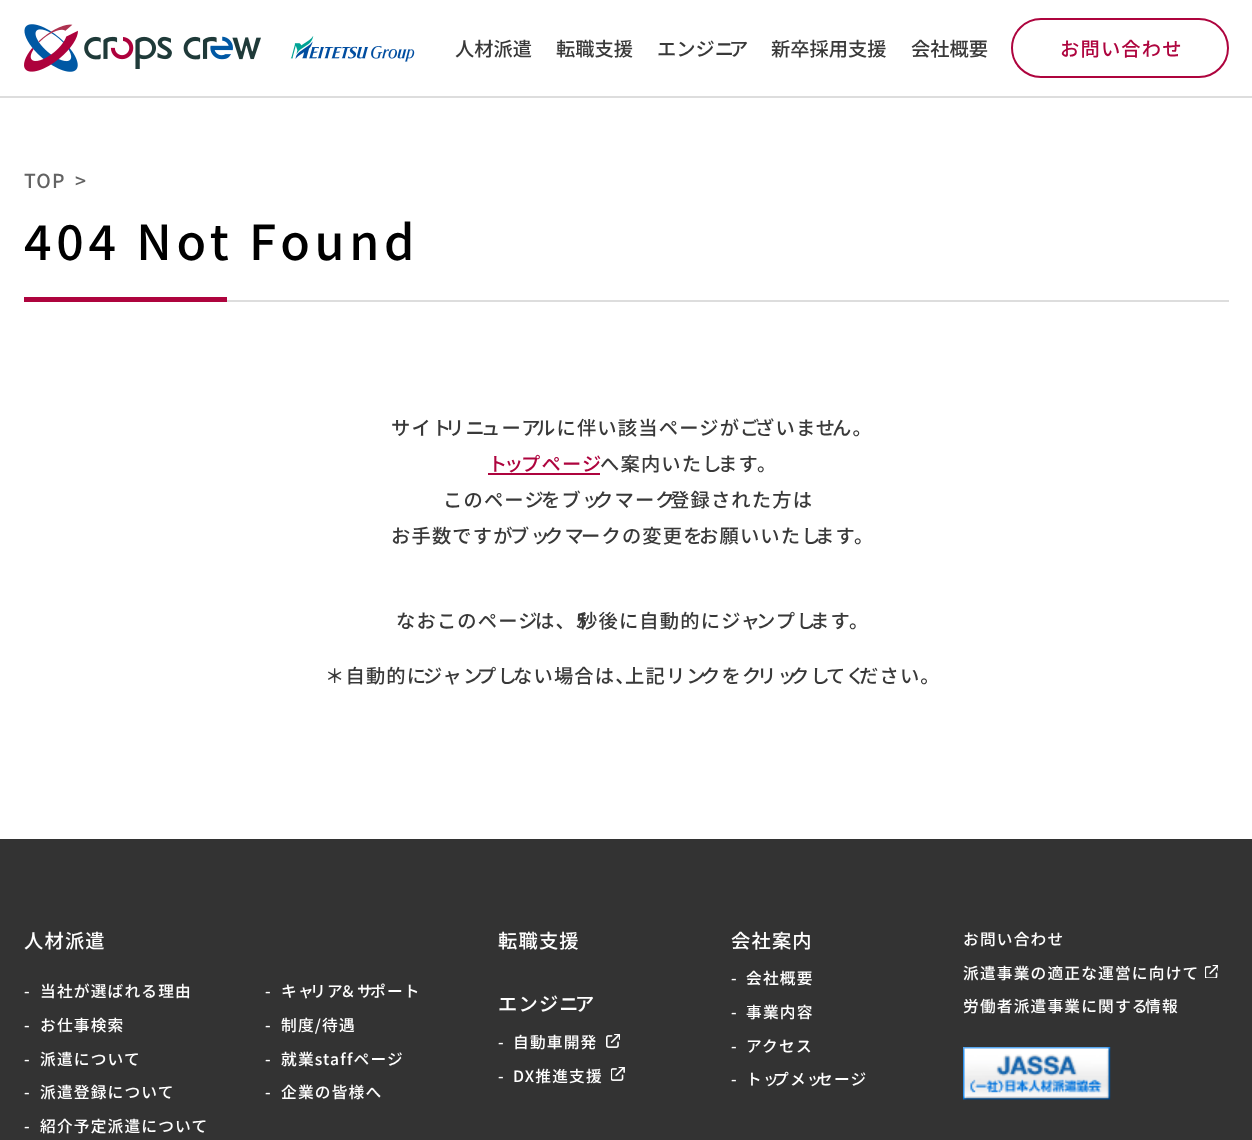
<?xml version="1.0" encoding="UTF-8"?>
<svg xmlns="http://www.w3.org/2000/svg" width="1252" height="1140">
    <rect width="100%" height="100%" fill="#FFFFFF"/>
    <image x="24" y="24" width="237" height="48" href="img_01.png"/>
    <image x="290" y="36" width="125" height="26" href="img_02.png"/>
    <text x="455" y="56" font-family="Noto Sans JP" font-size="19.25" font-weight="500" fill="#393939">人材派遣</text>
    <text x="556" y="56" font-family="Noto Sans JP" font-size="19.25" font-weight="500" fill="#393939">転職支援</text>
    <text x="657" y="56" font-family="Noto Sans JP" font-size="19.25" font-weight="500" fill="#393939">エンジニ</text>
    <text x="729" y="56" font-family="Noto Sans JP" font-size="19.25" font-weight="500" fill="#393939">ア</text>
    <text x="771" y="56" font-family="Noto Sans JP" font-size="19.25" font-weight="500" fill="#393939">新卒採用支援</text>
    <text x="911" y="56" font-family="Noto Sans JP" font-size="19.25" font-weight="500" fill="#393939">会社概要</text>
    <rect x="1012" y="19" width="216" height="58" rx="29" fill="none" stroke="#AE043E" stroke-width="2"/>
    <text x="1060" y="56" font-family="Noto Sans JP" font-size="19.25" font-weight="500" letter-spacing="1.2" fill="#AE043E">お問い合わせ</text>
    <rect x="0" y="96" width="1252" height="2" fill="#DDDDDD"/>
    <text x="24" y="188" font-family="Noto Sans JP" font-size="19.25" font-weight="500" letter-spacing="1.2" fill="#636363">TOP</text>
    <text x="75" y="188" font-family="Noto Sans JP" font-size="19.25" font-weight="500" letter-spacing="1.2" fill="#636363">&gt;</text>
    <rect x="227" y="300" width="1002" height="2" fill="#DDDDDD"/>
    <text x="24" y="260" font-family="Noto Sans JP" font-size="48.25" font-weight="500" letter-spacing="4.75" fill="#000000">404 Not Found</text>
    <rect x="24" y="297" width="203" height="5" fill="#AE043E"/>
    <text x="391" y="435" font-family="Noto Sans JP" font-size="19.25" font-weight="500" letter-spacing="1.2" fill="#393939">サイト</text>
    <text x="445" y="435" font-family="Noto Sans JP" font-size="19.25" font-weight="500" letter-spacing="1.2" fill="#393939">リニ</text>
    <text x="481" y="435" font-family="Noto Sans JP" font-size="19.25" font-weight="500" letter-spacing="1.2" fill="#393939">ューア</text>
    <text x="536" y="435" font-family="Noto Sans JP" font-size="19.25" font-weight="500" letter-spacing="1.2" fill="#393939">ルに伴い該当ページがご</text>
    <text x="755" y="435" font-family="Noto Sans JP" font-size="19.25" font-weight="500" letter-spacing="1.2" fill="#393939">ざいませ</text>
    <text x="832" y="435" font-family="Noto Sans JP" font-size="19.25" font-weight="500" letter-spacing="1.2" fill="#393939">ん。</text>
    <text x="488" y="471" font-family="Noto Sans JP" font-size="19.25" font-weight="500" letter-spacing="1.2" fill="#AE043E">ト</text>
    <text x="504" y="471" font-family="Noto Sans JP" font-size="19.25" font-weight="500" letter-spacing="1.2" fill="#AE043E">ッ</text>
    <text x="521" y="471" font-family="Noto Sans JP" font-size="19.25" font-weight="500" letter-spacing="1.2" fill="#AE043E">プページ</text>
    <rect x="488" y="473" width="112" height="2" fill="#AE043E"/>
    <text x="600" y="471" font-family="Noto Sans JP" font-size="19.25" font-weight="500" letter-spacing="1.2" fill="#393939">へ案内いたし</text>
    <text x="718" y="471" font-family="Noto Sans JP" font-size="19.25" font-weight="500" letter-spacing="1.2" fill="#393939">ます。</text>
    <text x="443" y="507" font-family="Noto Sans JP" font-size="19.25" font-weight="500" letter-spacing="1.2" fill="#393939">このページ</text>
    <text x="541" y="507" font-family="Noto Sans JP" font-size="19.25" font-weight="500" letter-spacing="1.2" fill="#393939">をブッ</text>
    <text x="594" y="507" font-family="Noto Sans JP" font-size="19.25" font-weight="500" letter-spacing="1.2" fill="#393939">クマーク</text>
    <text x="670" y="507" font-family="Noto Sans JP" font-size="19.25" font-weight="500" letter-spacing="1.2" fill="#393939">登録された方は</text>
    <text x="391" y="543" font-family="Noto Sans JP" font-size="19.25" font-weight="500" letter-spacing="1.2" fill="#393939">お手数ですが</text>
    <text x="510" y="543" font-family="Noto Sans JP" font-size="19.25" font-weight="500" letter-spacing="1.2" fill="#393939">ブッ</text>
    <text x="544" y="543" font-family="Noto Sans JP" font-size="19.25" font-weight="500" letter-spacing="1.2" fill="#393939">クマ</text>
    <text x="581" y="543" font-family="Noto Sans JP" font-size="19.25" font-weight="500" letter-spacing="1.2" fill="#393939">ークの変更を</text>
    <text x="699" y="543" font-family="Noto Sans JP" font-size="19.25" font-weight="500" letter-spacing="1.2" fill="#393939">お願いいたし</text>
    <text x="815" y="543" font-family="Noto Sans JP" font-size="19.25" font-weight="500" letter-spacing="1.2" fill="#393939">ます。</text>
    <text x="396" y="628" font-family="Noto Sans JP" font-size="19.25" font-weight="500" letter-spacing="1.2" fill="#393939">なおこのページ</text>
    <text x="535" y="628" font-family="Noto Sans JP" font-size="19.25" font-weight="500" letter-spacing="1.2" fill="#393939">は、5</text>
    <text x="578" y="628" font-family="Noto Sans JP" font-size="19.25" font-weight="500" letter-spacing="1.2" fill="#393939">秒後に自動的にジャ</text>
    <text x="756" y="628" font-family="Noto Sans JP" font-size="19.25" font-weight="500" letter-spacing="1.2" fill="#393939">ンプし</text>
    <text x="810" y="628" font-family="Noto Sans JP" font-size="19.25" font-weight="500" letter-spacing="1.2" fill="#393939">ます。</text>
    <text x="325" y="683" font-family="Noto Sans JP" font-size="19.25" font-weight="500" letter-spacing="1.2" fill="#393939">＊自動的に</text>
    <text x="423" y="683" font-family="Noto Sans JP" font-size="19.25" font-weight="500" letter-spacing="1.2" fill="#393939">ジャン</text>
    <text x="477" y="683" font-family="Noto Sans JP" font-size="19.25" font-weight="500" letter-spacing="1.2" fill="#393939">プし</text>
    <text x="513" y="683" font-family="Noto Sans JP" font-size="19.25" font-weight="500" letter-spacing="1.2" fill="#393939">ない場合は、</text>
    <text x="625" y="683" font-family="Noto Sans JP" font-size="19.25" font-weight="500" letter-spacing="1.2" fill="#393939">上記リン</text>
    <text x="701" y="683" font-family="Noto Sans JP" font-size="19.25" font-weight="500" letter-spacing="1.2" fill="#393939">クをク</text>
    <text x="757" y="683" font-family="Noto Sans JP" font-size="19.25" font-weight="500" letter-spacing="1.2" fill="#393939">リッ</text>
    <text x="790" y="683" font-family="Noto Sans JP" font-size="19.25" font-weight="500" letter-spacing="1.2" fill="#393939">クし</text>
    <text x="826" y="683" font-family="Noto Sans JP" font-size="19.25" font-weight="500" letter-spacing="1.2" fill="#393939">てく</text>
    <text x="859" y="683" font-family="Noto Sans JP" font-size="19.25" font-weight="500" letter-spacing="1.2" fill="#393939">ださい。</text>
    <rect x="0" y="839" width="1252" height="301" fill="#333333"/>
    <text x="24" y="948" font-family="Noto Sans JP" font-size="19.25" font-weight="500" letter-spacing="1.2" fill="#FFFFFF">人材派遣</text>
    <text x="24" y="997" font-family="Noto Sans JP" font-size="15.7" font-weight="500" letter-spacing="1.2" fill="#FFFFFF">-</text>
    <text x="40" y="997" font-family="Noto Sans JP" font-size="15.7" font-weight="500" letter-spacing="1.2" fill="#FFFFFF">当社が選ばれる理由</text>
    <text x="24" y="1031" font-family="Noto Sans JP" font-size="15.7" font-weight="500" letter-spacing="1.2" fill="#FFFFFF">-</text>
    <text x="40" y="1031" font-family="Noto Sans JP" font-size="15.7" font-weight="500" letter-spacing="1.2" fill="#FFFFFF">お仕事検索</text>
    <text x="24" y="1065" font-family="Noto Sans JP" font-size="15.7" font-weight="500" letter-spacing="1.2" fill="#FFFFFF">-</text>
    <text x="40" y="1065" font-family="Noto Sans JP" font-size="15.7" font-weight="500" letter-spacing="1.2" fill="#FFFFFF">派遣について</text>
    <text x="24" y="1098" font-family="Noto Sans JP" font-size="15.7" font-weight="500" letter-spacing="1.2" fill="#FFFFFF">-</text>
    <text x="40" y="1098" font-family="Noto Sans JP" font-size="15.7" font-weight="500" letter-spacing="1.2" fill="#FFFFFF">派遣登録について</text>
    <text x="24" y="1132" font-family="Noto Sans JP" font-size="15.7" font-weight="500" letter-spacing="1.2" fill="#FFFFFF">-</text>
    <text x="40" y="1132" font-family="Noto Sans JP" font-size="15.7" font-weight="500" letter-spacing="1.2" fill="#FFFFFF">紹介予定派遣について</text>
    <text x="265" y="997" font-family="Noto Sans JP" font-size="15.7" font-weight="500" letter-spacing="1.2" fill="#FFFFFF">-</text>
    <text x="281" y="997" font-family="Noto Sans JP" font-size="15.7" font-weight="500" letter-spacing="1.2" fill="#FFFFFF">キャ</text>
    <text x="310" y="997" font-family="Noto Sans JP" font-size="15.7" font-weight="500" letter-spacing="1.2" fill="#FFFFFF">リア</text>
    <text x="340" y="997" font-family="Noto Sans JP" font-size="15.7" font-weight="500" letter-spacing="1.2" fill="#FFFFFF">＆サ</text>
    <text x="370" y="997" font-family="Noto Sans JP" font-size="15.7" font-weight="500" letter-spacing="1.2" fill="#FFFFFF">ポート</text>
    <text x="265" y="1031" font-family="Noto Sans JP" font-size="15.7" font-weight="500" letter-spacing="1.2" fill="#FFFFFF">-</text>
    <text x="281" y="1031" font-family="Noto Sans JP" font-size="15.7" font-weight="500" letter-spacing="1.2" fill="#FFFFFF">制度/待遇</text>
    <text x="265" y="1065" font-family="Noto Sans JP" font-size="15.7" font-weight="500" letter-spacing="1.2" fill="#FFFFFF">-</text>
    <text x="281" y="1065" font-family="Noto Sans JP" font-size="15.7" font-weight="500" letter-spacing="1.2" fill="#FFFFFF">就業staffページ</text>
    <text x="265" y="1098" font-family="Noto Sans JP" font-size="15.7" font-weight="500" letter-spacing="1.2" fill="#FFFFFF">-</text>
    <text x="281" y="1098" font-family="Noto Sans JP" font-size="15.7" font-weight="500" letter-spacing="1.2" fill="#FFFFFF">企業の皆様へ</text>
    <text x="498" y="948" font-family="Noto Sans JP" font-size="19.25" font-weight="500" letter-spacing="1.2" fill="#FFFFFF">転職支援</text>
    <text x="498" y="1011" font-family="Noto Sans JP" font-size="19.25" font-weight="500" letter-spacing="1.2" fill="#FFFFFF">エンジニ</text>
    <text x="575" y="1011" font-family="Noto Sans JP" font-size="19.25" font-weight="500" letter-spacing="1.2" fill="#FFFFFF">ア</text>
    <text x="498" y="1048" font-family="Noto Sans JP" font-size="15.7" font-weight="500" letter-spacing="1.2" fill="#FFFFFF">-</text>
    <text x="513" y="1048" font-family="Noto Sans JP" font-size="15.7" font-weight="500" letter-spacing="1.2" fill="#FFFFFF">自動車開発</text>
    <image x="606" y="1034" width="14" height="14" href="img_03.png"/>
    <text x="498" y="1082" font-family="Noto Sans JP" font-size="15.7" font-weight="500" letter-spacing="1.2" fill="#FFFFFF">-</text>
    <text x="513" y="1082" font-family="Noto Sans JP" font-size="15.7" font-weight="500" letter-spacing="1.2" fill="#FFFFFF">DX推進支援</text>
    <image x="611" y="1067" width="14" height="14" href="img_04.png"/>
    <text x="731" y="948" font-family="Noto Sans JP" font-size="19.25" font-weight="500" letter-spacing="1.2" fill="#FFFFFF">会社案内</text>
    <text x="731" y="984" font-family="Noto Sans JP" font-size="15.7" font-weight="500" letter-spacing="1.2" fill="#FFFFFF">-</text>
    <text x="746" y="984" font-family="Noto Sans JP" font-size="15.7" font-weight="500" letter-spacing="1.2" fill="#FFFFFF">会社概要</text>
    <text x="731" y="1018" font-family="Noto Sans JP" font-size="15.7" font-weight="500" letter-spacing="1.2" fill="#FFFFFF">-</text>
    <text x="746" y="1018" font-family="Noto Sans JP" font-size="15.7" font-weight="500" letter-spacing="1.2" fill="#FFFFFF">事業内容</text>
    <text x="731" y="1052" font-family="Noto Sans JP" font-size="15.7" font-weight="500" letter-spacing="1.2" fill="#FFFFFF">-</text>
    <text x="746" y="1052" font-family="Noto Sans JP" font-size="15.7" font-weight="500" letter-spacing="1.2" fill="#FFFFFF">アクセス</text>
    <text x="731" y="1085" font-family="Noto Sans JP" font-size="15.7" font-weight="500" letter-spacing="1.2" fill="#FFFFFF">-</text>
    <text x="746" y="1085" font-family="Noto Sans JP" font-size="15.7" font-weight="500" letter-spacing="1.2" fill="#FFFFFF">トッ</text>
    <text x="773" y="1085" font-family="Noto Sans JP" font-size="15.7" font-weight="500" letter-spacing="1.2" fill="#FFFFFF">プメッ</text>
    <text x="817" y="1085" font-family="Noto Sans JP" font-size="15.7" font-weight="500" letter-spacing="1.2" fill="#FFFFFF">セージ</text>
    <text x="963" y="945" font-family="Noto Sans JP" font-size="15.7" font-weight="500" letter-spacing="1.2" fill="#FFFFFF">お問い合わせ</text>
    <text x="963" y="979" font-family="Noto Sans JP" font-size="15.7" font-weight="500" letter-spacing="1.2" fill="#FFFFFF">派遣事業の適正な運営に向けて</text>
    <image x="1205" y="965" width="13" height="13" href="img_05.png"/>
    <text x="963" y="1012" font-family="Noto Sans JP" font-size="15.7" font-weight="500" letter-spacing="1.2" fill="#FFFFFF">労働者派遣事業に関する</text>
    <text x="1145" y="1012" font-family="Noto Sans JP" font-size="15.7" font-weight="500" letter-spacing="1.2" fill="#FFFFFF">情報</text>
    <image x="963" y="1047" width="148" height="53" href="img_06.png"/>
</svg>
